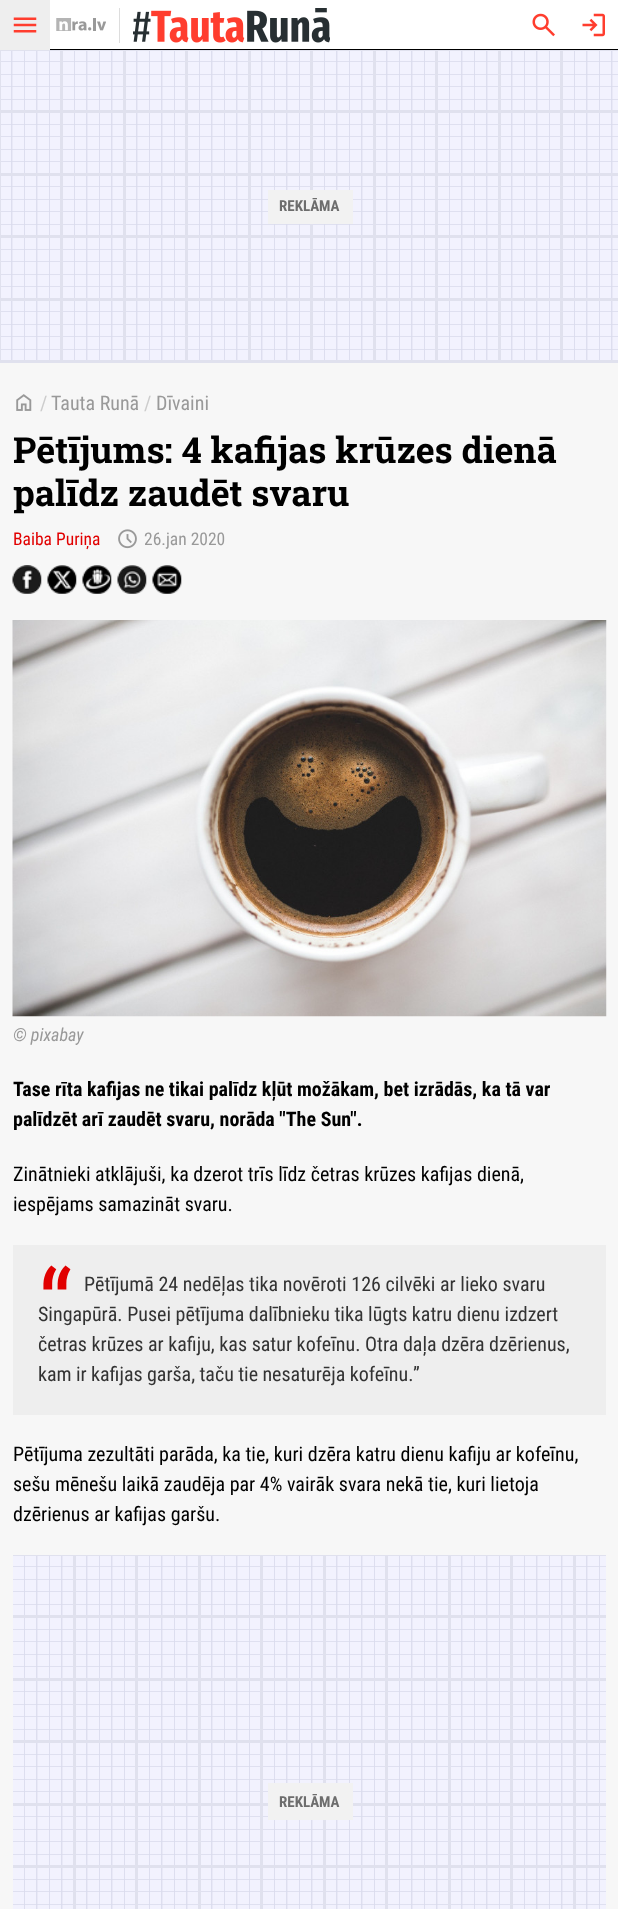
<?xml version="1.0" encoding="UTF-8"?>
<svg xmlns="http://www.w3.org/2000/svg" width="618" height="1909">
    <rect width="100%" height="100%" fill="#F7F7F7"/>
    <rect x="50" y="0" width="568" height="49" fill="#FFFFFF"/>
    <rect x="50" y="49" width="568" height="1" fill="#000000"/>
    <rect x="0" y="0" width="50" height="50" fill="#EEEEEE"/>
    <image x="13" y="17" width="24" height="16" href="img_01.png"/>
    <image x="56" y="18" width="50" height="13" href="img_02.png"/>
    <rect x="119" y="8" width="1" height="35" fill="#DDDDDD"/>
    <image x="133" y="8" width="197" height="35" href="img_03.png"/>
    <image x="532" y="13" width="23" height="24" href="img_04.png"/>
    <image x="582" y="13" width="23" height="24" href="img_05.png"/>
    <rect x="1" y="51" width="617" height="309" fill="#E9E9F7"/>
    <image x="1" y="51" width="617" height="309" href="img_06.png"/>
    <image x="1" y="61" width="617" height="289" href="img_07.png"/>
    <rect x="0" y="50" width="1" height="313" fill="#E0E1EE"/>
    <rect x="60" y="50" width="3" height="313" fill="#E0E1EE"/>
    <rect x="123" y="50" width="3" height="313" fill="#E0E1EE"/>
    <rect x="185" y="50" width="3" height="313" fill="#E0E1EE"/>
    <rect x="248" y="50" width="3" height="313" fill="#E0E1EE"/>
    <rect x="310" y="50" width="3" height="313" fill="#E0E1EE"/>
    <rect x="373" y="50" width="3" height="313" fill="#E0E1EE"/>
    <rect x="435" y="50" width="3" height="313" fill="#E0E1EE"/>
    <rect x="498" y="50" width="3" height="313" fill="#E0E1EE"/>
    <rect x="560" y="50" width="3" height="313" fill="#E0E1EE"/>
    <rect x="0" y="50" width="618" height="1" fill="#E0E1EE"/>
    <rect x="0" y="110" width="618" height="3" fill="#E0E1EE"/>
    <rect x="0" y="173" width="618" height="3" fill="#E0E1EE"/>
    <rect x="0" y="235" width="618" height="3" fill="#E0E1EE"/>
    <rect x="0" y="298" width="618" height="3" fill="#E0E1EE"/>
    <rect x="0" y="360" width="618" height="3" fill="#E0E1EE"/>
    <rect x="268" y="190" width="85" height="34" fill="#F2F2F2"/>
    <text x="279" y="211" font-family="Roboto Condensed" font-size="15" font-weight="700" fill="#6D6D6D">REKLĀMA</text>
    <image x="16" y="394" width="16" height="17" href="img_08.png"/>
    <text x="40" y="410" font-family="Roboto Condensed" font-size="20" fill="#CCCCCC">/</text>
    <text x="51" y="410" font-family="Roboto Condensed" font-size="20" fill="#999999">Tauta Runā</text>
    <text x="144" y="410" font-family="Roboto Condensed" font-size="20" fill="#CCCCCC">/</text>
    <text x="156" y="410" font-family="Roboto Condensed" font-size="20" fill="#999999">Dīvaini</text>
    <text font-family="Roboto Slab" font-size="36" font-weight="700" fill="#000000">
        <tspan x="13" y="463">Pētījums: 4 kafijas krūzes dienā</tspan>
        <tspan x="13" y="506">palīdz zaudēt svaru</tspan>
    </text>
    <text x="13" y="545" font-family="Roboto Condensed" font-size="17.5" fill="#E10000">Baiba Puriņa</text>
    <image x="118" y="529" width="19" height="20" href="img_09.png"/>
    <text x="144" y="545" font-family="Roboto Condensed" font-size="17.5" fill="#999999">26.jan 2020</text>
    <image x="12" y="565" width="30" height="29" href="img_10.png"/>
    <image x="47" y="565" width="30" height="29" href="img_11.png"/>
    <image x="82" y="565" width="30" height="29" href="img_12.png"/>
    <image x="117" y="565" width="30" height="29" href="img_13.png"/>
    <image x="152" y="565" width="30" height="29" href="img_14.png"/>
    <image x="12" y="620" width="595" height="397" href="img_15.png"/>
    <text x="13" y="1041" font-family="Roboto Condensed" font-size="18" font-style="italic" fill="#999999">© pixabay</text>
    <text font-family="Roboto Condensed" font-size="20" font-weight="700" fill="#000000">
        <tspan x="13" y="1096">Tase rīta kafijas ne tikai palīdz kļūt možākam, bet izrādās, ka tā var</tspan>
        <tspan x="13" y="1126">palīdzēt arī zaudēt svaru, norāda "The Sun".</tspan>
    </text>
    <text font-family="Roboto Condensed" font-size="20" fill="#000000">
        <tspan x="13" y="1181">Zinātnieki atklājuši, ka dzerot trīs līdz četras krūzes kafijas dienā,</tspan>
        <tspan x="13" y="1211">iespējams samazināt svaru.</tspan>
    </text>
    <rect x="13" y="1245" width="593" height="170" fill="#EEEEEE"/>
    <text x="38" y="1343" font-family="Roboto Condensed" font-size="102" fill="#E10000">“</text>
    <text x="84" y="1291" font-family="Roboto Condensed" font-size="20" fill="#333333">Pētījumā 24 nedēļas tika novēroti 126 cilvēki ar lieko svaru</text>
    <text font-family="Roboto Condensed" font-size="20" fill="#333333">
        <tspan x="38" y="1321">Singapūrā. Pusei pētījuma dalībnieku tika lūgts katru dienu izdzert</tspan>
        <tspan x="38" y="1351">četras krūzes ar kafiju, kas satur kofeīnu. Otra daļa dzēra dzērienus,</tspan>
        <tspan x="38" y="1381" word-spacing="-0.25">kam ir kafijas garša, taču tie nesaturēja kofeīnu.</tspan>
    </text>
    <text x="413" y="1381" font-family="Roboto Condensed" font-size="20" fill="#333333">”</text>
    <text font-family="Roboto Condensed" font-size="20" fill="#000000">
        <tspan x="13" y="1461">Pētījuma zezultāti parāda, ka tie, kuri dzēra katru dienu kafiju ar kofeīnu,</tspan>
        <tspan x="13" y="1491">sešu mēnešu laikā zaudēja par 4% vairāk svara nekā tie, kuri lietoja</tspan>
        <tspan x="13" y="1521">dzērienus ar kafijas garšu.</tspan>
    </text>
    <rect x="13" y="1556" width="593" height="353" fill="#E9E9F7"/>
    <image x="13" y="1556" width="593" height="353" href="img_16.png"/>
    <image x="13" y="1566" width="593" height="339" href="img_17.png"/>
    <rect x="73" y="1555" width="3" height="354" fill="#E0E1EE"/>
    <rect x="135" y="1555" width="3" height="354" fill="#E0E1EE"/>
    <rect x="198" y="1555" width="3" height="354" fill="#E0E1EE"/>
    <rect x="260" y="1555" width="3" height="354" fill="#E0E1EE"/>
    <rect x="323" y="1555" width="3" height="354" fill="#E0E1EE"/>
    <rect x="385" y="1555" width="3" height="354" fill="#E0E1EE"/>
    <rect x="448" y="1555" width="3" height="354" fill="#E0E1EE"/>
    <rect x="510" y="1555" width="3" height="354" fill="#E0E1EE"/>
    <rect x="573" y="1555" width="3" height="354" fill="#E0E1EE"/>
    <rect x="13" y="1555" width="593" height="1" fill="#E0E1EE"/>
    <rect x="13" y="1615" width="593" height="3" fill="#E0E1EE"/>
    <rect x="13" y="1678" width="593" height="3" fill="#E0E1EE"/>
    <rect x="13" y="1740" width="593" height="3" fill="#E0E1EE"/>
    <rect x="13" y="1803" width="593" height="3" fill="#E0E1EE"/>
    <rect x="13" y="1865" width="593" height="3" fill="#E0E1EE"/>
    <rect x="268" y="1783" width="85" height="37" fill="#F2F2F2"/>
    <text x="279" y="1807" font-family="Roboto Condensed" font-size="15" font-weight="700" fill="#6D6D6D">REKLĀMA</text>
</svg>
